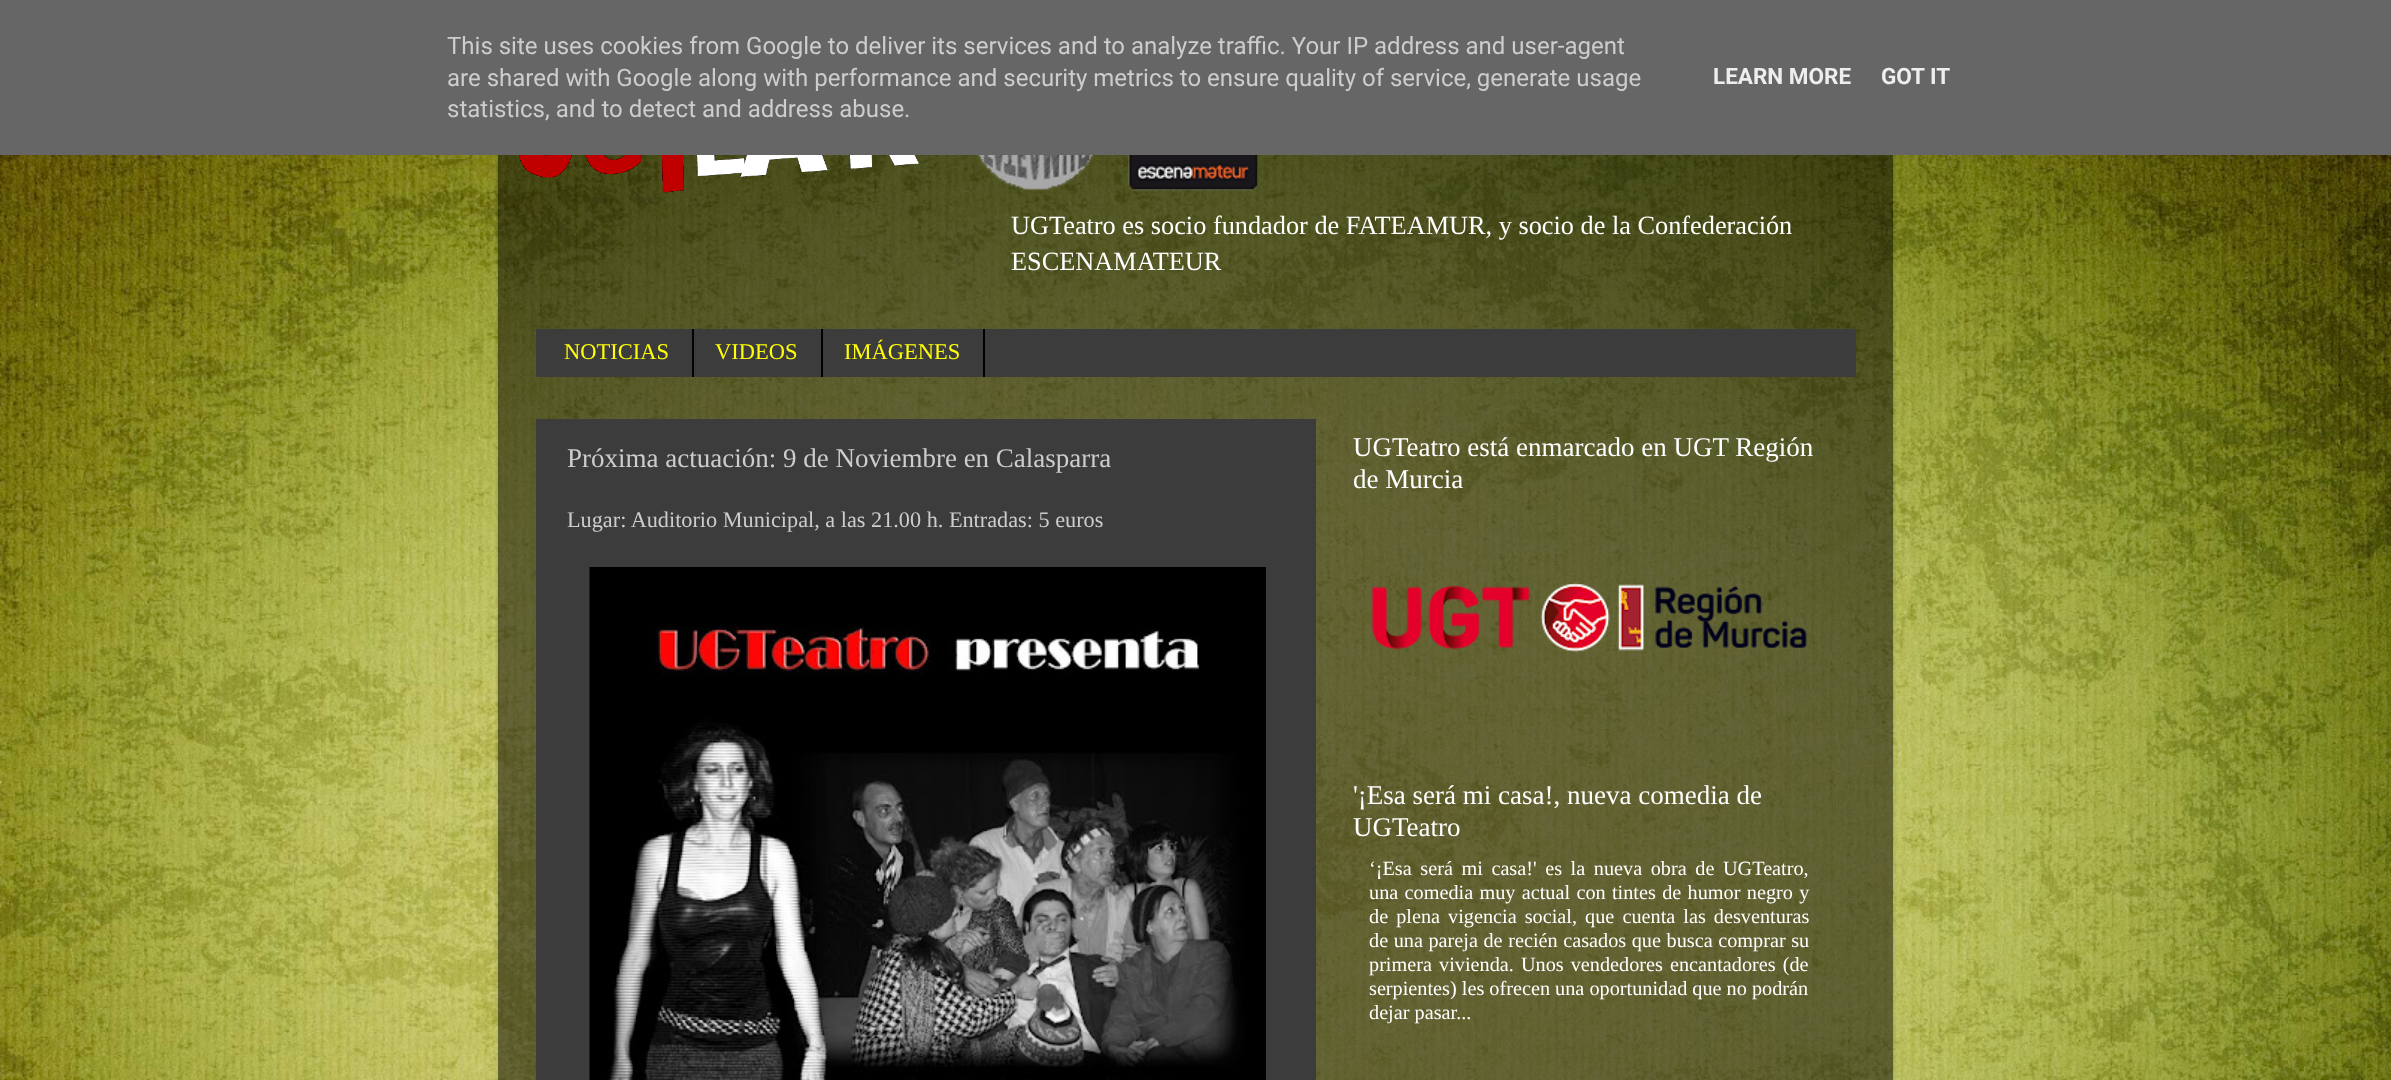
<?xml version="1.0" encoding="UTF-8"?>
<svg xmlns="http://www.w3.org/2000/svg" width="2391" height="1080">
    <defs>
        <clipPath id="clip1"><path d="M 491 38 H 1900 V 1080 H 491 Z M 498 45 H 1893 V 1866 H 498 Z" clip-rule="evenodd"/></clipPath>
        <filter id="blur1" x="-50%" y="-200%" width="200%" height="500%"><feGaussianBlur stdDeviation="2"/></filter>
    </defs>
    <rect width="100%" height="100%" fill="#FFFFFF"/>
    <image x="0" y="155" width="2391" height="925" href="img_01.png"/>
    <g clip-path="url(#clip1)">
        <rect x="498" y="45" width="1395" height="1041" fill="#000000" fill-opacity="0.15" filter="url(#blur1)"/>
    </g>
    <rect x="0" y="0" width="2391" height="155" fill="#666666"/>
    <text font-family="Roboto" font-size="24" fill="#CDCDCD">
        <tspan x="447" y="54">This site uses cookies from Google to deliver its services and to analyze traffic. Your IP address and user-agent</tspan>
        <tspan x="447" y="86">are shared with Google along with performance and security metrics to ensure quality of service, generate usage</tspan>
        <tspan x="447" y="117">statistics, and to detect and address abuse.</tspan>
    </text>
    <text x="1713" y="84" font-family="Roboto" font-size="22.5" font-weight="700" fill="#EEEEEE">LEARN MORE</text>
    <text x="1881" y="84" font-family="Roboto" font-size="22.5" font-weight="700" fill="#EEEEEE">GOT IT</text>
    <rect x="498" y="155" width="1395" height="925" fill="#000000" fill-opacity="0.5"/>
    <image x="518" y="155" width="401" height="38" href="img_02.png"/>
    <image x="976" y="155" width="282" height="36" href="img_03.png"/>
    <text font-family="Liberation Serif" font-size="26.3" fill="#FFFFFF">
        <tspan x="1011" y="234">UGTeatro es socio fundador de FATEAMUR, y socio de la Confederación</tspan>
        <tspan x="1011" y="270">ESCENAMATEUR</tspan>
    </text>
    <rect x="536" y="329" width="1320" height="48" fill="#3C3C3C"/>
    <rect x="692" y="329" width="2" height="48" fill="#000000"/>
    <text x="564" y="359" font-family="Liberation Serif" font-size="22.5" fill="#FFFF08">NOTICIAS</text>
    <rect x="821" y="329" width="2" height="48" fill="#000000"/>
    <text x="715" y="359" font-family="Liberation Serif" font-size="22.5" fill="#FFFF08">VIDEOS</text>
    <rect x="983" y="329" width="2" height="48" fill="#000000"/>
    <text x="844" y="359" font-family="Liberation Serif" font-size="22.5" fill="#FFFF08">IMÁGENES</text>
    <rect x="536" y="419" width="780" height="661" fill="#3C3C3C"/>
    <text x="567" y="467" font-family="Liberation Serif" font-size="27" fill="#CDCDCD">Próxima actuación: 9 de Noviembre en Calasparra</text>
    <text x="567" y="527" font-family="Liberation Serif" font-size="22.25" fill="#CDCDCD">Lugar: Auditorio Municipal, a las 21.00 h. Entradas: 5 euros</text>
    <image x="589" y="567" width="677" height="513" href="img_04.png"/>
    <text font-family="Liberation Serif" font-size="27" fill="#FFFFFF">
        <tspan x="1353" y="456">UGTeatro está enmarcado en UGT Región</tspan>
        <tspan x="1353" y="488">de Murcia</tspan>
    </text>
    <image x="1371" y="582" width="436" height="70" href="img_05.png"/>
    <text font-family="Liberation Serif" font-size="27" fill="#FFFFFF">
        <tspan x="1353" y="804">'¡Esa será mi casa!, nueva comedia de</tspan>
        <tspan x="1353" y="836">UGTeatro</tspan>
    </text>
    <text font-family="Liberation Serif" font-size="20.25" fill="#FFFFFF">
        <tspan x="1369" y="875" word-spacing="3.5">‘¡Esa será mi casa!' es la nueva obra de UGTeatro,</tspan>
        <tspan x="1369" y="899" word-spacing="1.25">una comedia muy actual con tintes de humor negro y</tspan>
        <tspan x="1369" y="923" word-spacing="3">de plena vigencia social, que cuenta las desventuras</tspan>
        <tspan x="1369" y="947" word-spacing="0.5">de una pareja de recién casados que busca comprar su</tspan>
        <tspan x="1369" y="971" word-spacing="2">primera vivienda. Unos vendedores encantadores (de</tspan>
        <tspan x="1369" y="995">serpientes) les ofrecen una oportunidad que no podrán</tspan>
        <tspan x="1369" y="1019">dejar pasar...</tspan>
    </text>
</svg>
